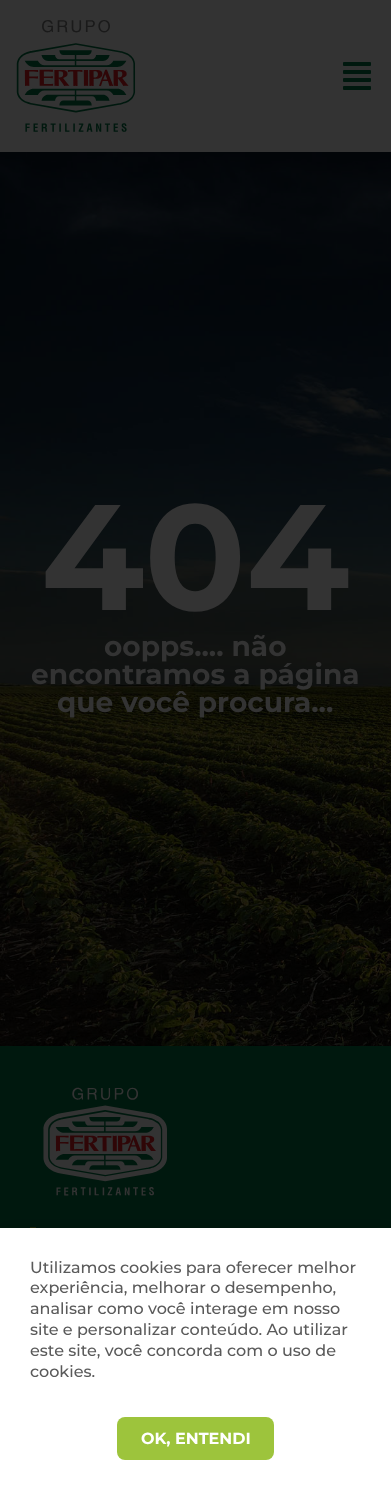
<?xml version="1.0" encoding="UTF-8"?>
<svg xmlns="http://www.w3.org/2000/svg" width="391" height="1490">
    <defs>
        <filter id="blur1" x="-50%" y="-200%" width="200%" height="500%"><feGaussianBlur stdDeviation="11.5"/></filter>
    </defs>
    <rect width="100%" height="100%" fill="#333333"/>
    <image x="16" y="20" width="120" height="112" href="img_01.png"/>
    <image x="343" y="62" width="28" height="28" href="img_02.png"/>
    <image x="0" y="152" width="391" height="894" href="img_03.png"/>
    <text x="41" y="610" font-family="Montserrat" font-size="150" font-weight="700" fill="#333333">404</text>
    <text x="104" y="656" font-family="Montserrat" font-size="28" font-weight="700" fill="#333333">oopps.... não</text>
    <text x="31" y="684" font-family="Montserrat" font-size="28" font-weight="700" fill="#333333">encontramos a página</text>
    <text x="57" y="712" font-family="Montserrat" font-size="28" font-weight="700" fill="#333333">que você procura...</text>
    <rect x="0" y="1046" width="391" height="182" fill="#00180E"/>
    <image x="43" y="1087" width="124" height="109" href="img_04.png"/>
    <rect x="30" y="1227" width="6" height="1" fill="#1F270C"/>
    <rect x="-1" y="1233" width="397" height="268" fill="#000000" fill-opacity="0.2" filter="url(#blur1)"/>
    <rect x="0" y="1228" width="391" height="262" fill="#FFFFFF"/>
    <text font-family="Montserrat" font-size="16" font-weight="500" fill="#5A5A5A">
        <tspan x="30" y="1273">Utilizamos cookies para oferecer melhor</tspan>
        <tspan x="30" y="1293">experiência, melhorar o desempenho,</tspan>
        <tspan x="30" y="1314">analisar como você interage em nosso</tspan>
        <tspan x="30" y="1335">site e personalizar conteúdo. Ao utilizar</tspan>
        <tspan x="30" y="1356">este site, você concorda com o uso de</tspan>
        <tspan x="30" y="1377">cookies.</tspan>
    </text>
    <rect x="117" y="1417" width="157" height="43" rx="8" fill="#9DC43C"/>
    <text x="141" y="1444" font-family="Montserrat" font-size="16" font-weight="700" fill="#FFFFFF">OK, ENTENDI</text>
</svg>
